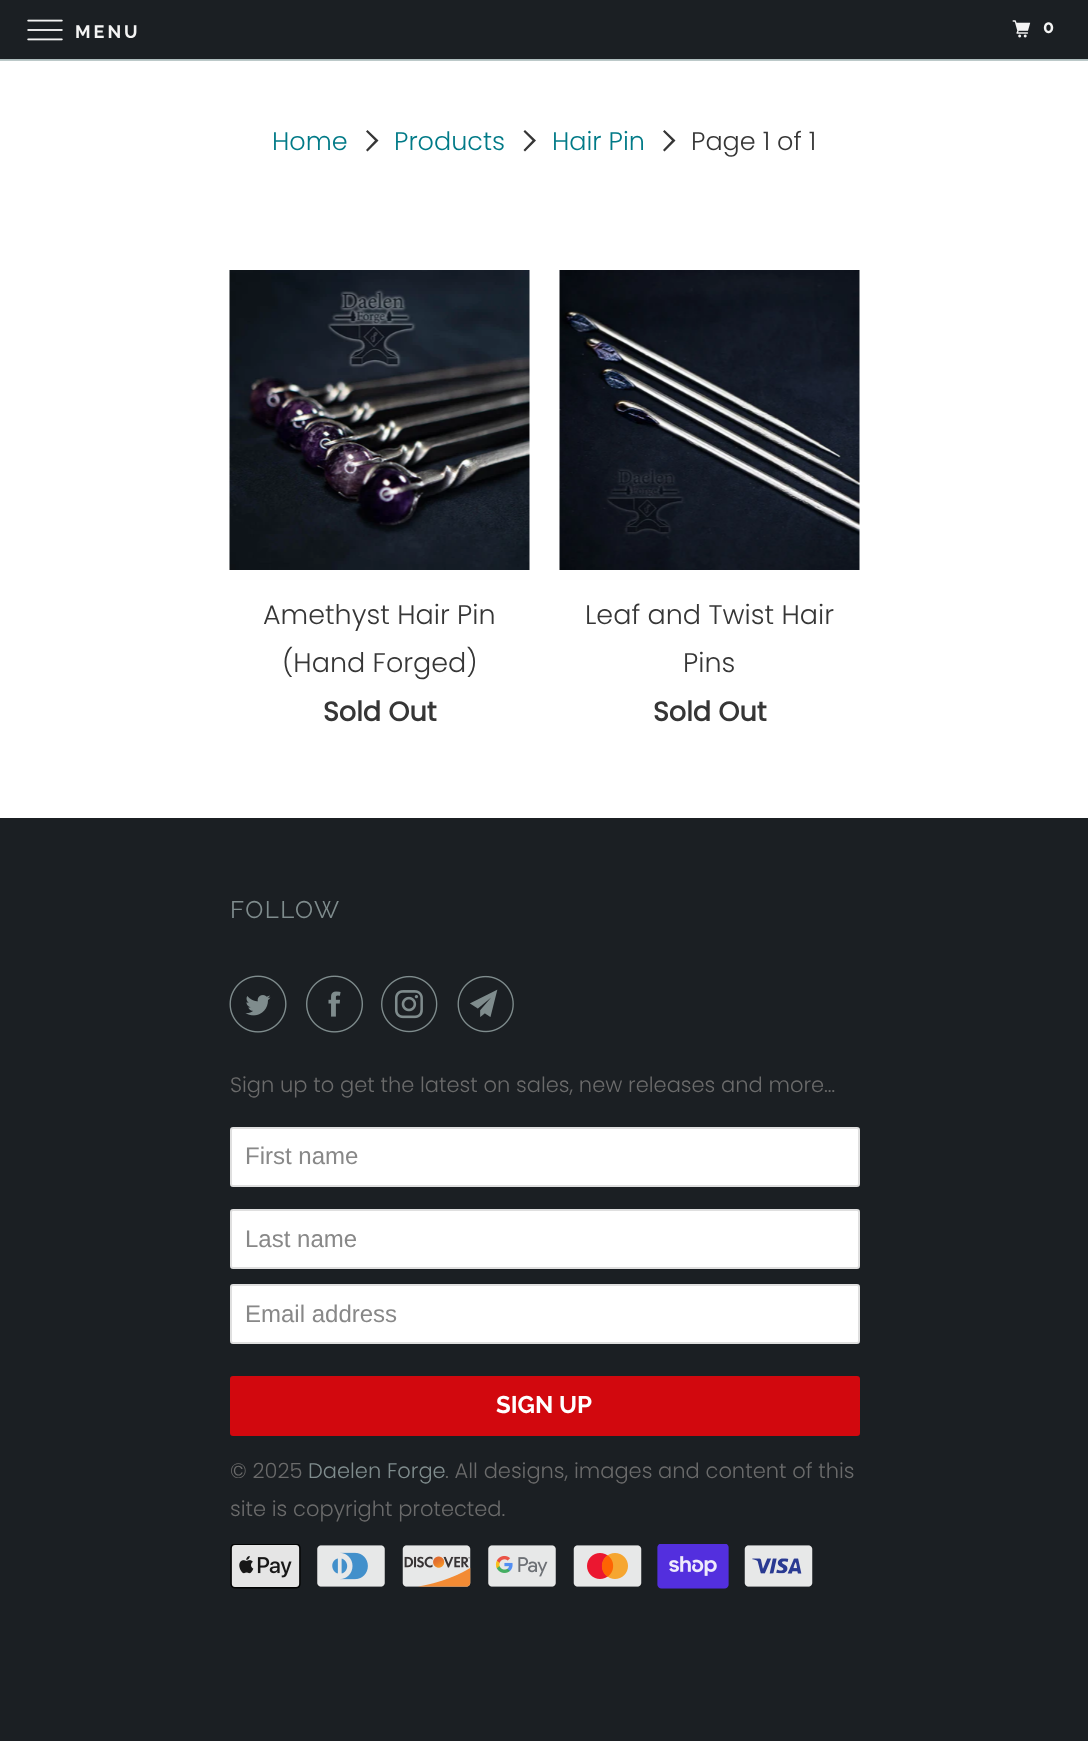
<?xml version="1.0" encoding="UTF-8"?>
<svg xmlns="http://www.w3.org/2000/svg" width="1088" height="1741">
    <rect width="100%" height="100%" fill="#1B1F23"/>
    <rect x="0" y="59" width="1088" height="1" fill="#B0BEBE"/>
    <image x="27" y="19" width="36" height="22" href="img_01.png"/>
    <text x="75" y="38" font-family="Raleway" font-size="18" font-weight="700" letter-spacing="3" fill="#F4F4F4">MENU</text>
    <image x="1012" y="20" width="19" height="18" href="img_02.png"/>
    <text x="1043" y="33" font-family="Raleway" font-size="18" font-weight="700" letter-spacing="3" fill="#F4F4F4">0</text>
    <rect x="0" y="61" width="1088" height="757" fill="#FFFFFF"/>
    <rect x="0" y="60" width="1088" height="1" fill="#BCC9C9"/>
    <text x="272" y="150" font-family="Poppins" font-size="25.5" font-weight="300" fill="#007A87">Home</text>
    <path d="M 373 146 L 367.5 151.5 L 366 150 L 375 140.5 L 366 131.5 L 367.5 130 L 378.5 140.5 Z" fill="#363636"/>
    <text x="394" y="150" font-family="Poppins" font-size="25.5" font-weight="300" fill="#007A87">Products</text>
    <path d="M 530.5 146 L 525 151.5 L 523.5 150 L 532.5 140.5 L 523.5 131.5 L 525 130 L 536 140.5 Z" fill="#363636"/>
    <text x="552" y="150" font-family="Poppins" font-size="25.5" font-weight="300" fill="#007A87">Hair Pin</text>
    <path d="M 670 146 L 664.5 151.5 L 663 150 L 672 140.5 L 663 131.5 L 664.5 130 L 675.5 140.5 Z" fill="#363636"/>
    <text x="691" y="150" font-family="Poppins" font-size="25.5" font-weight="300" fill="#363636">Page 1 of 1</text>
    <image x="229" y="270" width="301" height="300" href="img_03.png"/>
    <text x="263" y="624" font-family="Poppins" font-size="27" font-weight="300" fill="#363636">Amethyst Hair Pin</text>
    <text x="282" y="672" font-family="Poppins" font-size="27" font-weight="300" fill="#363636">(Hand Forged)</text>
    <text x="323" y="721" font-family="Poppins" font-size="27" font-weight="700" fill="#363636">Sold Out</text>
    <image x="559" y="270" width="301" height="300" href="img_04.png"/>
    <text x="585" y="624" font-family="Poppins" font-size="27" font-weight="300" fill="#363636">Leaf and Twist Hair</text>
    <text x="683" y="672" font-family="Poppins" font-size="27" font-weight="300" fill="#363636">Pins</text>
    <text x="653" y="721" font-family="Poppins" font-size="27" font-weight="700" fill="#363636">Sold Out</text>
    <text x="230" y="918" font-family="Raleway" font-size="24" letter-spacing="1.5" fill="#7F8C8D">FOLLOW</text>
    <image x="229" y="975" width="58" height="58" href="img_05.png"/>
    <image x="306" y="975" width="57" height="58" href="img_06.png"/>
    <image x="381" y="975" width="57" height="58" href="img_07.png"/>
    <image x="457" y="975" width="57" height="58" href="img_08.png"/>
    <text x="230" y="1092" font-family="Poppins" font-size="21" font-weight="300" fill="#6B6B6B">Sign up to get the latest on sales, new releases and more…</text>
    <rect x="231" y="1128" width="628" height="58" rx="2" fill="#FFFFFF" stroke="#DFDFDF" stroke-width="2"/>
    <text x="245" y="1164" font-family="Liberation Sans" font-size="24" fill="#888888">First name</text>
    <rect x="231" y="1210" width="628" height="58" rx="2" fill="#FFFFFF" stroke="#DFDFDF" stroke-width="2"/>
    <text x="245" y="1247" font-family="Liberation Sans" font-size="24" fill="#888888">Last name</text>
    <rect x="231" y="1285" width="628" height="58" rx="2" fill="#FFFFFF" stroke="#DFDFDF" stroke-width="2"/>
    <text x="245" y="1322" font-family="Liberation Sans" font-size="24" fill="#888888">Email address</text>
    <rect x="230" y="1376" width="630" height="60" rx="3" fill="#D2080E"/>
    <text x="496" y="1413" font-family="Raleway" font-size="24" font-weight="700" fill="#FFFFFF">SIGN UP</text>
    <text x="230" y="1478" font-family="Poppins" font-size="21" font-weight="300" fill="#6B6B6B">© 2025</text>
    <text x="308" y="1478" font-family="Poppins" font-size="21" font-weight="300" fill="#7F8C8D">Daelen Forge</text>
    <text x="445" y="1478" font-family="Poppins" font-size="21" font-weight="300" fill="#6B6B6B">. All designs, images and content of this</text>
    <text x="230" y="1516" font-family="Poppins" font-size="21" font-weight="300" fill="#6B6B6B">site is copyright protected.</text>
    <image x="230" y="1544" width="71" height="45" href="img_09.png"/>
    <image x="317" y="1545" width="68" height="42" href="img_10.png"/>
    <image x="402" y="1545" width="69" height="42" href="img_11.png"/>
    <image x="488" y="1545" width="68" height="42" href="img_12.png"/>
    <image x="573" y="1545" width="69" height="42" href="img_13.png"/>
    <image x="657" y="1544" width="72" height="45" href="img_14.png"/>
    <image x="744" y="1545" width="69" height="42" href="img_15.png"/>
</svg>
